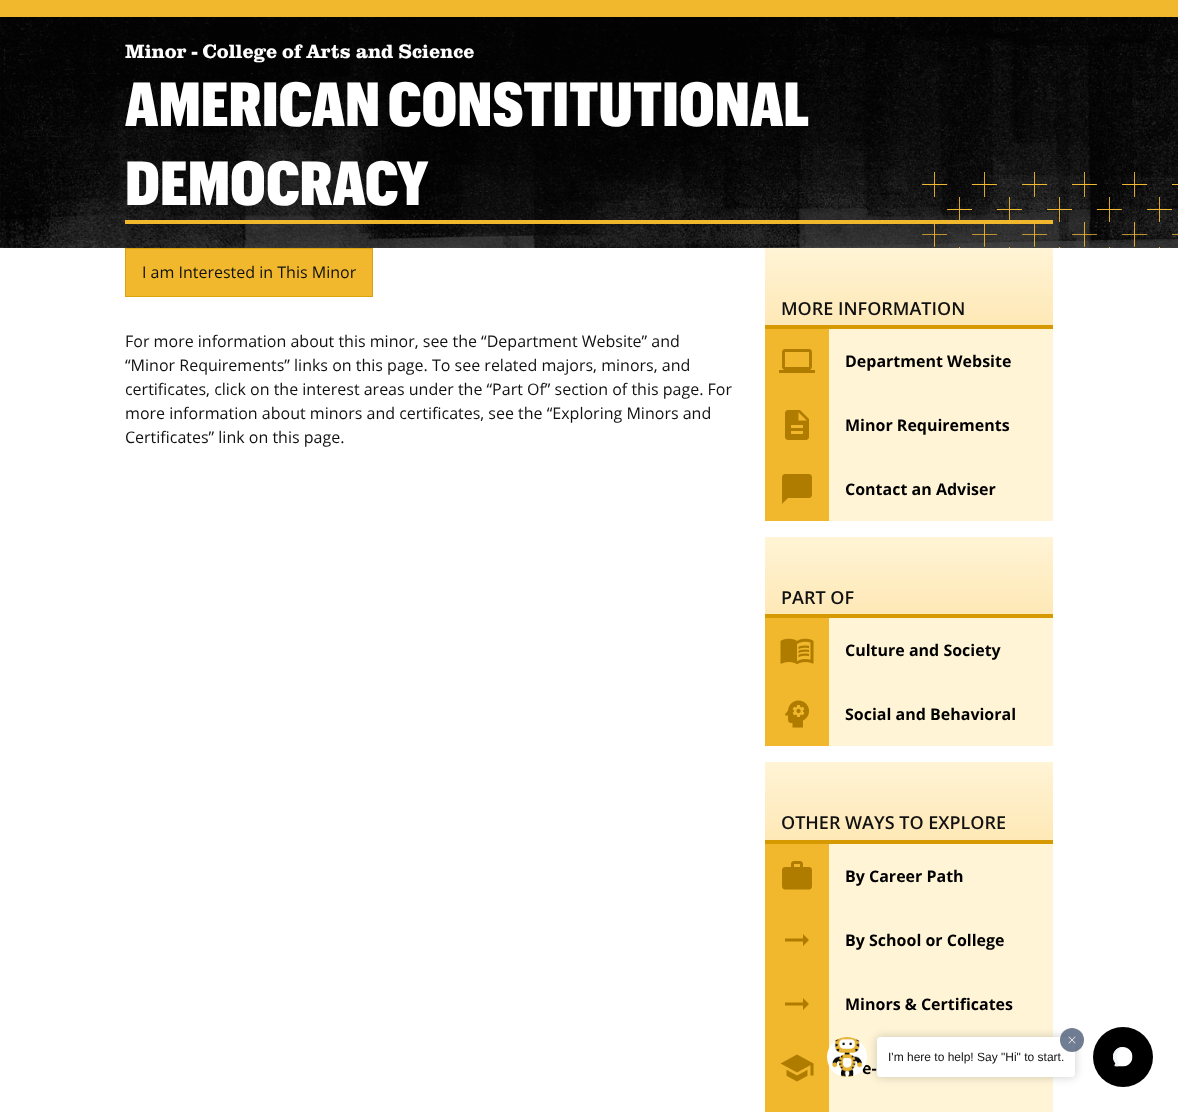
<?xml version="1.0" encoding="UTF-8"?>
<svg xmlns="http://www.w3.org/2000/svg" width="1178" height="1112">
    <defs>
        <linearGradient id="g1" gradientUnits="userSpaceOnUse" x1="909" y1="248" x2="909" y2="325"><stop offset="0" stop-color="#FFF4D6"/><stop offset="1" stop-color="#FEE8B6"/></linearGradient>
        <linearGradient id="g2" gradientUnits="userSpaceOnUse" x1="909" y1="537" x2="909" y2="614"><stop offset="0" stop-color="#FFF4D6"/><stop offset="1" stop-color="#FEE8B6"/></linearGradient>
        <linearGradient id="g3" gradientUnits="userSpaceOnUse" x1="909" y1="762" x2="909" y2="840"><stop offset="0" stop-color="#FFF4D6"/><stop offset="1" stop-color="#FEE8B6"/></linearGradient>
        <filter id="blur1" x="-50%" y="-200%" width="200%" height="500%"><feGaussianBlur stdDeviation="5"/></filter>
    </defs>
    <rect width="100%" height="100%" fill="#FFFFFF"/>
    <rect x="0" y="0" width="1178" height="17" fill="#F1B82D"/>
    <rect x="0" y="17" width="1178" height="231" fill="#111111"/>
    <image x="0" y="17" width="1178" height="231" href="img_01.png"/>
    <text x="125" y="58" font-family="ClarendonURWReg" font-size="20" fill="#FFFFFF">Minor - College of Arts and Science</text>
    <image x="922" y="172" width="256" height="76" href="img_02.png"/>
    <rect x="125" y="220" width="928" height="4" fill="#F1B82D"/>
    <text font-family="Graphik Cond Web" font-size="61" font-weight="800" fill="#FFFFFF">
        <tspan x="125" y="126">AMERICAN CONSTITUTIONAL</tspan>
        <tspan x="125" y="205">DEMOCRACY</tspan>
    </text>
    <rect x="125.5" y="248.5" width="247" height="48" fill="#F1B82D" stroke="#DCA10F"/>
    <text x="142" y="278" font-family="Open Sans" font-size="16" fill="#111111">I am Interested in This Minor</text>
    <text font-family="Open Sans" font-size="16" fill="#111111">
        <tspan x="125" y="347">For more information about this minor, see the “Department Website” and</tspan>
        <tspan x="125" y="371">“Minor Requirements” links on this page. To see related majors, minors, and</tspan>
        <tspan x="125" y="395">certificates, click on the interest areas under the “Part Of” section of this page. For</tspan>
        <tspan x="125" y="419">more information about minors and certificates, see the “Exploring Minors and</tspan>
        <tspan x="125" y="443">Certificates” link on this page.</tspan>
    </text>
    <rect x="829" y="329" width="224" height="192" fill="#FFF4D6"/>
    <rect x="765" y="248" width="288" height="77" fill="url(#g1)"/>
    <rect x="765" y="325" width="288" height="4" fill="#D79900"/>
    <text x="781" y="315" font-family="Open Sans" font-size="18" font-weight="600" fill="#111111">MORE INFORMATION</text>
    <rect x="765" y="329" width="64" height="192" fill="#F1B82D"/>
    <image x="779" y="349" width="36" height="24" href="img_03.png"/>
    <text x="845" y="367" font-family="Open Sans" font-size="16" font-weight="700" fill="#000000">Department Website</text>
    <image x="785" y="410" width="24" height="30" href="img_04.png"/>
    <text x="845" y="431" font-family="Open Sans" font-size="16" font-weight="700" fill="#000000">Minor Requirements</text>
    <image x="782" y="474" width="30" height="30" href="img_05.png"/>
    <text x="845" y="495" font-family="Open Sans" font-size="16" font-weight="700" fill="#000000">Contact an Adviser</text>
    <rect x="829" y="618" width="224" height="128" fill="#FFF4D6"/>
    <rect x="765" y="537" width="288" height="77" fill="url(#g2)"/>
    <rect x="765" y="614" width="288" height="4" fill="#D79900"/>
    <text x="781" y="604" font-family="Open Sans" font-size="18" font-weight="600" fill="#111111">PART OF</text>
    <rect x="765" y="618" width="64" height="128" fill="#F1B82D"/>
    <image x="780" y="638" width="34" height="27" href="img_06.png"/>
    <text x="845" y="656" font-family="Open Sans" font-size="16" font-weight="700" fill="#000000">Culture and Society</text>
    <image x="785" y="700" width="24" height="28" href="img_07.png"/>
    <text x="845" y="720" font-family="Open Sans" font-size="16" font-weight="700" fill="#000000">Social and Behavioral</text>
    <rect x="829" y="844" width="224" height="268" fill="#FFF4D6"/>
    <rect x="765" y="762" width="288" height="78" fill="url(#g3)"/>
    <rect x="765" y="840" width="288" height="4" fill="#D79900"/>
    <text x="781" y="829" font-family="Open Sans" font-size="18" font-weight="600" fill="#111111">OTHER WAYS TO EXPLORE</text>
    <rect x="765" y="844" width="64" height="268" fill="#F1B82D"/>
    <image x="782" y="861" width="30" height="29" href="img_08.png"/>
    <text x="845" y="882" font-family="Open Sans" font-size="16" font-weight="700" fill="#000000">By Career Path</text>
    <path d="M 803 938.5 V 934 L 809 940 L 803 946 V 941.5 H 785 V 938.5 Z" fill="#AF7C00"/>
    <text x="845" y="946" font-family="Open Sans" font-size="16" font-weight="700" fill="#000000">By School or College</text>
    <path d="M 803 1002.5 V 998 L 809 1004 L 803 1010 V 1005.5 H 785 V 1002.5 Z" fill="#AF7C00"/>
    <text x="845" y="1010" font-family="Open Sans" font-size="16" font-weight="700" fill="#000000">Minors &amp; Certificates</text>
    <image x="780" y="1054" width="34" height="28" href="img_09.png"/>
    <text x="862" y="1074" font-family="Open Sans" font-size="16" font-weight="700" fill="#000000">e-</text>
    <image x="827" y="1037" width="40" height="40" href="img_10.png"/>
    <rect x="877" y="1037" width="198" height="40" rx="3" fill="#000000" fill-opacity="0.2" filter="url(#blur1)"/>
    <rect x="877.5" y="1037.5" width="197" height="39" rx="2.5" fill="#FFFFFF" stroke="#FFFFFF"/>
    <circle cx="1072" cy="1040" r="12" fill="#4E5D77" fill-opacity="0.8"/>
    <image x="1068" y="1036" width="8" height="8" href="img_11.png"/>
    <text x="888" y="1061" font-family="Liberation Sans" font-size="12" fill="#111111">I'm here to help! Say "Hi" to start.</text>
    <circle cx="1123" cy="1057" r="30" fill="#000000"/>
    <image x="1113" y="1047" width="20" height="20" href="img_12.png"/>
</svg>
